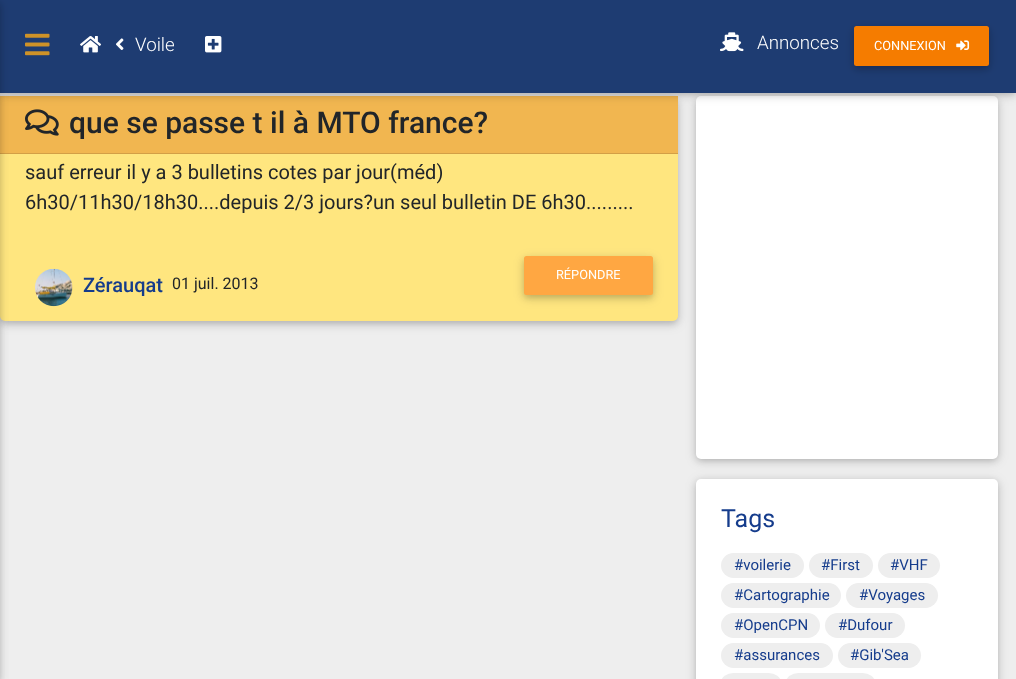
<?xml version="1.0" encoding="UTF-8"?>
<svg xmlns="http://www.w3.org/2000/svg" width="1016" height="679">
    <defs>
        <filter id="blur1" x="-50%" y="-200%" width="200%" height="500%"><feGaussianBlur stdDeviation="6"/></filter>
        <filter id="blur2" x="-50%" y="-200%" width="200%" height="500%"><feGaussianBlur stdDeviation="3"/></filter>
    </defs>
    <rect width="100%" height="100%" fill="#EEEEEE"/>
    <rect x="0" y="99" width="678" height="225" rx="5" fill="#000000" fill-opacity="0.12" filter="url(#blur1)"/>
    <rect x="0" y="99" width="678" height="225" rx="5" fill="#000000" fill-opacity="0.16" filter="url(#blur2)"/>
    <rect x="0" y="96" width="678" height="225" rx="5" fill="#FFE67F"/>
    <rect x="0" y="96" width="678" height="57" fill="#F1B650"/>
    <image x="25" y="109" width="34" height="27" href="img_07.png"/>
    <rect x="0" y="153" width="678" height="1" fill="#D39F46"/>
    <rect x="696" y="99" width="302" height="362" rx="5" fill="#000000" fill-opacity="0.12" filter="url(#blur1)"/>
    <rect x="696" y="99" width="302" height="362" rx="5" fill="#000000" fill-opacity="0.16" filter="url(#blur2)"/>
    <rect x="696" y="96" width="302" height="363" rx="5" fill="#FFFFFF"/>
    <rect x="0" y="3" width="1016" height="92" fill="#000000" fill-opacity="0.12" filter="url(#blur1)"/>
    <rect x="0" y="3" width="1016" height="92" fill="#000000" fill-opacity="0.16" filter="url(#blur2)"/>
    <rect x="0" y="0" width="1016" height="93" fill="#1E3C72"/>
    <rect x="-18" y="3" width="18" height="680" fill="#000000" fill-opacity="0.12" filter="url(#blur1)"/>
    <rect x="-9" y="3" width="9" height="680" fill="#000000" fill-opacity="0.16" filter="url(#blur2)"/>
    <image x="25" y="33" width="25" height="23" href="img_01.png"/>
    <image x="80" y="36" width="21" height="17" href="img_02.png"/>
    <image x="116" y="38" width="8" height="12" href="img_03.png"/>
    <text x="135" y="51" font-family="Roboto" font-size="18.75" font-weight="300" fill="#FFFFFF">Voile</text>
    <image x="205" y="36" width="17" height="17" href="img_04.png"/>
    <image x="720" y="32" width="24" height="20" href="img_05.png"/>
    <text x="757" y="49" font-family="Roboto" font-size="18.75" font-weight="300" fill="#FFFFFF">Annonces</text>
    <rect x="854" y="29" width="135" height="40" rx="2.5" fill="#000000" fill-opacity="0.12" filter="url(#blur1)"/>
    <rect x="854" y="29" width="135" height="40" rx="2.5" fill="#000000" fill-opacity="0.16" filter="url(#blur2)"/>
    <rect x="854" y="26" width="135" height="40" rx="2.5" fill="#F57C00"/>
    <text x="874" y="50" font-family="Roboto" font-size="12.75" fill="#FFFFFF">CONNEXION</text>
    <image x="956" y="40" width="14" height="11" href="img_06.png"/>
    <text x="69" y="133" font-family="Roboto" font-size="30" font-weight="500" fill="#212529">que se passe t il à MTO france?</text>
    <text font-family="Roboto" font-size="20" fill="#212529">
        <tspan x="25" y="179">sauf erreur il y a 3 bulletins cotes par jour(méd)</tspan>
        <tspan x="25" y="209">6h30/11h30/18h30....depuis 2/3 jours?un seul bulletin DE 6h30.........</tspan>
    </text>
    <rect x="524" y="259" width="129" height="39" rx="2.5" fill="#000000" fill-opacity="0.12" filter="url(#blur1)"/>
    <rect x="524" y="259" width="129" height="39" rx="2.5" fill="#000000" fill-opacity="0.16" filter="url(#blur2)"/>
    <rect x="524" y="256" width="129" height="39" rx="2.5" fill="#FFA742"/>
    <text x="556" y="279" font-family="Roboto" font-size="12.75" fill="#FFFFFF">RÉPONDRE</text>
    <image x="35" y="268" width="38" height="39" href="img_08.png"/>
    <text x="83" y="292" font-family="Roboto" font-size="20" font-weight="500" fill="#153C8C">Zérauqat</text>
    <text x="172" y="289" font-family="Roboto" font-size="16" fill="#212529">01 juil. 2013</text>
    <rect x="696" y="481" width="302" height="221" rx="5" fill="#000000" fill-opacity="0.12" filter="url(#blur1)"/>
    <rect x="696" y="481" width="302" height="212" rx="5" fill="#000000" fill-opacity="0.16" filter="url(#blur2)"/>
    <rect x="696" y="479" width="302" height="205" rx="5" fill="#FFFFFF"/>
    <text x="721" y="527" font-family="Roboto" font-size="25" fill="#153C8C">Tags</text>
    <rect x="721" y="553" width="83" height="25" rx="12.5" fill="#EEEEEE"/>
    <text x="734" y="570" font-family="Roboto" font-size="15" fill="#153C8C">#voilerie</text>
    <rect x="809" y="553" width="64" height="25" rx="12.5" fill="#EEEEEE"/>
    <text x="821" y="570" font-family="Roboto" font-size="15" fill="#153C8C">#First</text>
    <rect x="878" y="553" width="62" height="25" rx="12.5" fill="#EEEEEE"/>
    <text x="890" y="570" font-family="Roboto" font-size="15" fill="#153C8C">#VHF</text>
    <rect x="721" y="583" width="120" height="25" rx="12.5" fill="#EEEEEE"/>
    <text x="734" y="600" font-family="Roboto" font-size="15" fill="#153C8C">#Cartographie</text>
    <rect x="846" y="583" width="92" height="25" rx="12.5" fill="#EEEEEE"/>
    <text x="859" y="600" font-family="Roboto" font-size="15" fill="#153C8C">#Voyages</text>
    <rect x="721" y="613" width="99" height="25" rx="12.5" fill="#EEEEEE"/>
    <text x="734" y="630" font-family="Roboto" font-size="15" fill="#153C8C">#OpenCPN</text>
    <rect x="825" y="613" width="80" height="25" rx="12.5" fill="#EEEEEE"/>
    <text x="838" y="630" font-family="Roboto" font-size="15" fill="#153C8C">#Dufour</text>
    <rect x="721" y="643" width="112" height="25" rx="12.5" fill="#EEEEEE"/>
    <text x="734" y="660" font-family="Roboto" font-size="15" fill="#153C8C">#assurances</text>
    <rect x="838" y="643" width="83" height="25" rx="12.5" fill="#EEEEEE"/>
    <text x="850" y="660" font-family="Roboto" font-size="15" fill="#153C8C">#Gib'Sea</text>
    <rect x="721" y="673" width="60" height="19" rx="12.5" fill="#EEEEEE"/>
    <rect x="786" y="673" width="89" height="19" rx="12.5" fill="#EEEEEE"/>
</svg>
